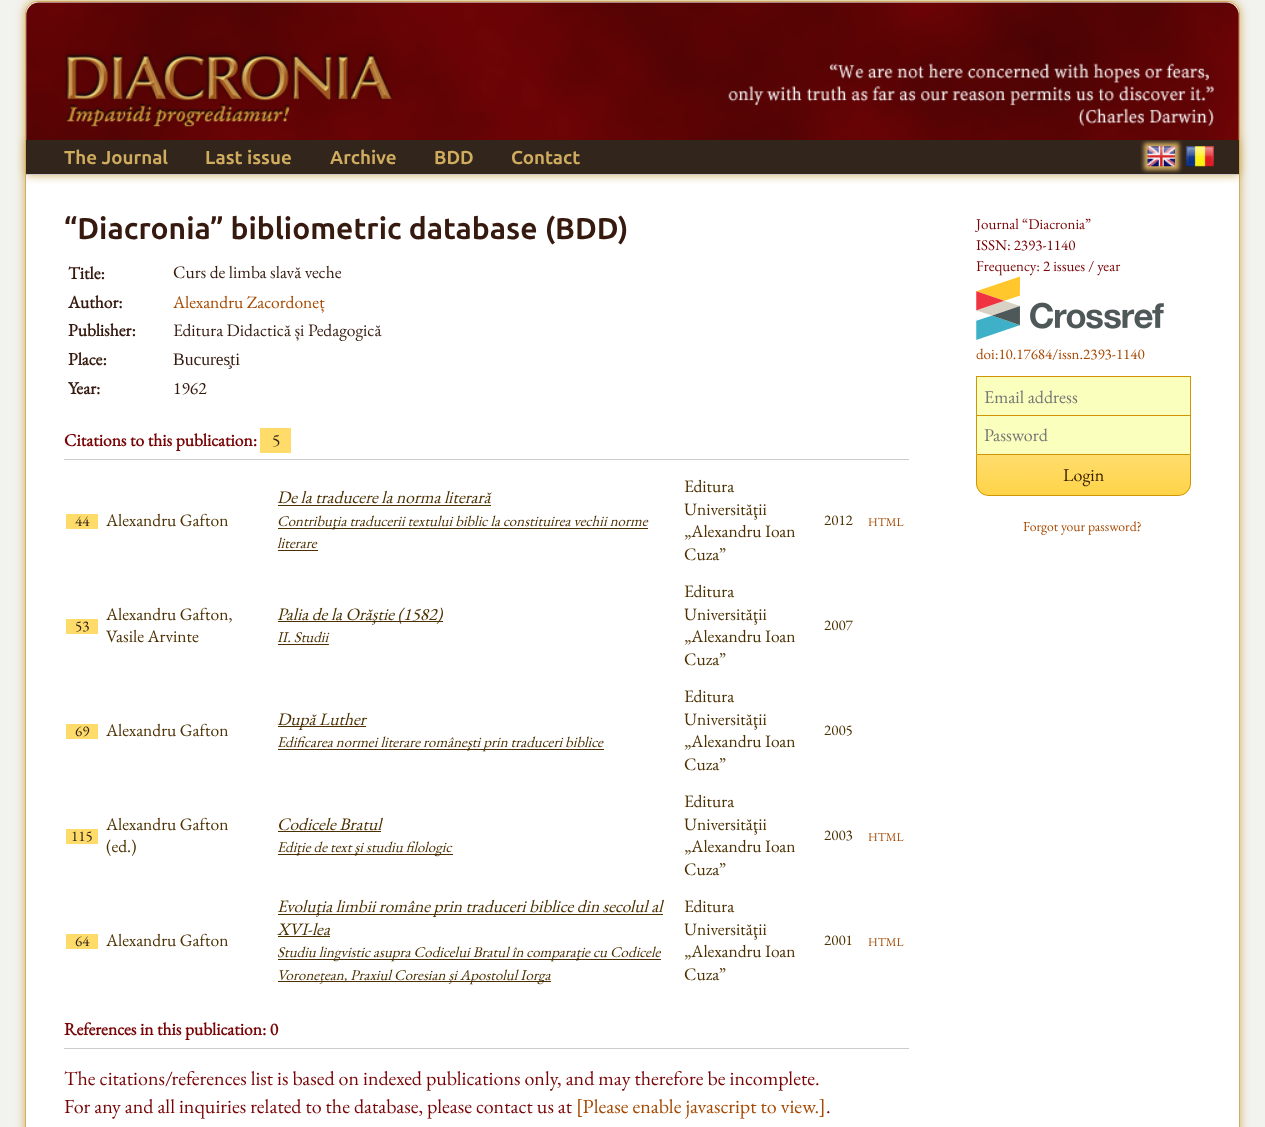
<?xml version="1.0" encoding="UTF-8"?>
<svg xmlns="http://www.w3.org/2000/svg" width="1265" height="1127">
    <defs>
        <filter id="blur1" x="-50%" y="-200%" width="200%" height="500%"><feGaussianBlur stdDeviation="5"/></filter>
        <filter id="blur2" x="-50%" y="-200%" width="200%" height="500%"><feGaussianBlur stdDeviation="2"/></filter>
        <clipPath id="clip1"><path d="M 976 454 H 1191 V 483 C 1191 490 1185 496 1178 496 H 989 C 982 496 976 490 976 483 Z"/></clipPath>
        <linearGradient id="g1" gradientUnits="userSpaceOnUse" x1="1084" y1="455" x2="1084" y2="495"><stop offset="0" stop-color="#FFDD6D"/><stop offset="1" stop-color="#FFD448"/></linearGradient>
    </defs>
    <rect width="100%" height="100%" fill="#F2F2EE"/>
    <rect x="25" y="1" width="1215" height="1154" rx="13" fill="#D0AC5F" filter="url(#blur1)"/>
    <path d="M 38 1.5 H 1227 C 1234 1.5 1239.5 7 1239.5 14 V 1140.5 H 25.5 V 14 C 25.5 7 31 1.5 38 1.5 Z" fill="#FFFFFF" stroke="#D0AC5F"/>
    <rect x="26" y="140" width="1213" height="35" fill="#D0AC5F" filter="url(#blur1)"/>
    <rect x="26" y="140" width="1213" height="34" fill="#32251C"/>
    <rect x="26" y="174" width="1213" height="1" fill="#CCCCCC"/>
    <rect x="1144" y="143" width="35" height="27" fill="#D0AC5F" filter="url(#blur2)"/>
    <image x="26" y="2" width="1213" height="138" href="img_01.png"/>
    <image x="65" y="52" width="328" height="75" href="img_02.png"/>
    <image x="728" y="63" width="486" height="64" href="img_03.png"/>
    <text x="64" y="164" font-family="Ubuntu" font-size="18.75" font-weight="700" fill="#D0AC5F">The Journal</text>
    <text x="205" y="164" font-family="Ubuntu" font-size="18.75" font-weight="700" fill="#D0AC5F">Last issue</text>
    <text x="330" y="164" font-family="Ubuntu" font-size="18.75" font-weight="700" fill="#D0AC5F">Archive</text>
    <text x="434" y="164" font-family="Ubuntu" font-size="18.75" font-weight="700" fill="#D0AC5F">BDD</text>
    <text x="511" y="164" font-family="Ubuntu" font-size="18.75" font-weight="700" fill="#D0AC5F">Contact</text>
    <image x="1147" y="146" width="28" height="21" href="img_04.png"/>
    <image x="1186" y="146" width="28" height="21" href="img_05.png"/>
    <text x="64" y="239" font-family="Ubuntu" font-size="30" font-weight="700" fill="#361A0F">“Diacronia” bibliometric database (BDD)</text>
    <text x="68" y="279" font-family="EB Garamond" font-size="17.5" font-weight="700" fill="#361A0F">Title:</text>
    <text x="173" y="278" font-family="EB Garamond" font-size="17.5" fill="#361A0F">Curs de limba slavă veche</text>
    <text x="68" y="308" font-family="EB Garamond" font-size="17.5" font-weight="700" fill="#361A0F">Author:</text>
    <text x="173" y="308" font-family="EB Garamond" font-size="17.5" fill="#A64902">Alexandru Zacordoneț</text>
    <text x="68" y="336" font-family="EB Garamond" font-size="17.5" font-weight="700" fill="#361A0F">Publisher:</text>
    <text x="173" y="336" font-family="EB Garamond" font-size="17.5" fill="#361A0F">Editura Didactică și Pedagogică</text>
    <text x="68" y="365" font-family="EB Garamond" font-size="17.5" font-weight="700" fill="#361A0F">Place:</text>
    <text x="173" y="365" font-family="Liberation Serif" font-size="17.5" fill="#361A0F">Bucureşti</text>
    <text x="68" y="394" font-family="EB Garamond" font-size="17.5" font-weight="700" fill="#361A0F">Year:</text>
    <text x="173" y="394" font-family="EB Garamond" font-size="17.5" fill="#361A0F">1962</text>
    <text x="64" y="446" font-family="EB Garamond" font-size="17.5" font-weight="700" fill="#780406">Citations to this publication:</text>
    <rect x="260" y="428" width="31" height="25" fill="#FFDC69"/>
    <text x="272" y="446" font-family="EB Garamond" font-size="17.5" fill="#32251C">5</text>
    <rect x="64" y="459" width="845" height="1" fill="#CCCCCC"/>
    <rect x="66" y="514" width="32" height="15" fill="#FFDC69"/>
    <text x="75" y="526" font-family="EB Garamond" font-size="15" fill="#32251C">44</text>
    <text x="106" y="526" font-family="EB Garamond" font-size="17.5" fill="#4C3000">Alexandru Gafton</text>
    <text x="277" y="503" font-family="EB Garamond" font-size="17.5" font-style="italic" fill="#4C3000">De la traducere la norma literară</text>
    <rect x="278" y="505" width="213" height="1" fill="#4C3000"/>
    <rect x="278" y="528" width="370" height="1" fill="#4C3000"/>
    <text font-family="EB Garamond" font-size="15" font-style="italic" fill="#4C3000">
        <tspan x="277" y="526">Contribuţia traducerii textului biblic la constituirea vechii norme</tspan>
        <tspan x="277" y="548">literare</tspan>
    </text>
    <rect x="278" y="550" width="40" height="1" fill="#4C3000"/>
    <text font-family="EB Garamond" font-size="17.5" fill="#4C3000">
        <tspan x="684" y="492">Editura</tspan>
        <tspan x="684" y="515">Universităţii</tspan>
        <tspan x="684" y="537">„Alexandru Ioan</tspan>
        <tspan x="684" y="560">Cuza”</tspan>
    </text>
    <text x="824" y="525" font-family="EB Garamond" font-size="15" fill="#4C3000">2012</text>
    <text x="868" y="526" font-family="EB Garamond" font-size="12" fill="#A64902">HTML</text>
    <rect x="66" y="619" width="32" height="15" fill="#FFDC69"/>
    <text x="75" y="631" font-family="EB Garamond" font-size="15" fill="#32251C">53</text>
    <text font-family="EB Garamond" font-size="17.5" fill="#4C3000">
        <tspan x="106" y="620">Alexandru Gafton,</tspan>
        <tspan x="106" y="642">Vasile Arvinte</tspan>
    </text>
    <rect x="278" y="621" width="165" height="1" fill="#4C3000"/>
    <text x="277" y="620" font-family="EB Garamond" font-size="17.5" font-style="italic" fill="#4C3000">Palia de la Orăştie (1582)</text>
    <text x="277" y="642" font-family="EB Garamond" font-size="15" font-style="italic" fill="#4C3000">II. Studii</text>
    <rect x="278" y="644" width="51" height="1" fill="#4C3000"/>
    <text font-family="EB Garamond" font-size="17.5" fill="#4C3000">
        <tspan x="684" y="597">Editura</tspan>
        <tspan x="684" y="620">Universităţii</tspan>
        <tspan x="684" y="642">„Alexandru Ioan</tspan>
        <tspan x="684" y="665">Cuza”</tspan>
    </text>
    <text x="824" y="630" font-family="EB Garamond" font-size="15" fill="#4C3000">2007</text>
    <rect x="66" y="724" width="32" height="15" fill="#FFDC69"/>
    <text x="75" y="736" font-family="EB Garamond" font-size="15" fill="#32251C">69</text>
    <text x="106" y="736" font-family="EB Garamond" font-size="17.5" fill="#4C3000">Alexandru Gafton</text>
    <rect x="278" y="726" width="88" height="1" fill="#4C3000"/>
    <text x="277" y="725" font-family="EB Garamond" font-size="17.5" font-style="italic" fill="#4C3000">După Luther</text>
    <rect x="278" y="749" width="326" height="1" fill="#4C3000"/>
    <text x="277" y="747" font-family="EB Garamond" font-size="15" font-style="italic" fill="#4C3000">Edificarea normei literare româneşti prin traduceri biblice</text>
    <text font-family="EB Garamond" font-size="17.5" fill="#4C3000">
        <tspan x="684" y="702">Editura</tspan>
        <tspan x="684" y="725">Universităţii</tspan>
        <tspan x="684" y="747">„Alexandru Ioan</tspan>
        <tspan x="684" y="770">Cuza”</tspan>
    </text>
    <text x="824" y="735" font-family="EB Garamond" font-size="15" fill="#4C3000">2005</text>
    <rect x="66" y="829" width="32" height="15" fill="#FFDC69"/>
    <text x="71" y="841" font-family="EB Garamond" font-size="15" fill="#32251C">115</text>
    <text font-family="EB Garamond" font-size="17.5" fill="#4C3000">
        <tspan x="106" y="830">Alexandru Gafton</tspan>
        <tspan x="106" y="852">(ed.)</tspan>
    </text>
    <text x="277" y="830" font-family="EB Garamond" font-size="17.5" font-style="italic" fill="#4C3000">Codicele Bratul</text>
    <rect x="278" y="831" width="103" height="1" fill="#4C3000"/>
    <rect x="278" y="854" width="175" height="1" fill="#4C3000"/>
    <text x="277" y="852" font-family="EB Garamond" font-size="15" font-style="italic" fill="#4C3000">Ediţie de text şi studiu filologic</text>
    <text font-family="EB Garamond" font-size="17.5" fill="#4C3000">
        <tspan x="684" y="807">Editura</tspan>
        <tspan x="684" y="830">Universităţii</tspan>
        <tspan x="684" y="852">„Alexandru Ioan</tspan>
        <tspan x="684" y="875">Cuza”</tspan>
    </text>
    <text x="824" y="840" font-family="EB Garamond" font-size="15" fill="#4C3000">2003</text>
    <text x="868" y="841" font-family="EB Garamond" font-size="12" fill="#A64902">HTML</text>
    <rect x="66" y="934" width="32" height="15" fill="#FFDC69"/>
    <text x="75" y="946" font-family="EB Garamond" font-size="15" fill="#32251C">64</text>
    <text x="106" y="946" font-family="EB Garamond" font-size="17.5" fill="#4C3000">Alexandru Gafton</text>
    <rect x="278" y="914" width="385" height="1" fill="#4C3000"/>
    <text font-family="EB Garamond" font-size="17.5" font-style="italic" fill="#4C3000">
        <tspan x="277" y="912">Evoluţia limbii române prin traduceri biblice din secolul al</tspan>
        <tspan x="277" y="935">XVI-lea</tspan>
    </text>
    <rect x="278" y="936" width="52" height="1" fill="#4C3000"/>
    <rect x="278" y="959" width="383" height="1" fill="#4C3000"/>
    <text x="277" y="957" font-family="EB Garamond" font-size="15" font-style="italic" fill="#4C3000">Studiu lingvistic asupra Codicelui Bratul în comparaţie cu Codicele</text>
    <rect x="278" y="981" width="273" height="1" fill="#4C3000"/>
    <text x="277" y="980" font-family="EB Garamond" font-size="15" font-style="italic" fill="#4C3000">Voroneţean, Praxiul Coresian şi Apostolul Iorga</text>
    <text font-family="EB Garamond" font-size="17.5" fill="#4C3000">
        <tspan x="684" y="912">Editura</tspan>
        <tspan x="684" y="935">Universităţii</tspan>
        <tspan x="684" y="957">„Alexandru Ioan</tspan>
        <tspan x="684" y="980">Cuza”</tspan>
    </text>
    <text x="824" y="945" font-family="EB Garamond" font-size="15" fill="#4C3000">2001</text>
    <text x="868" y="946" font-family="EB Garamond" font-size="12" fill="#A64902">HTML</text>
    <text x="64" y="1035" font-family="EB Garamond" font-size="17.5" font-weight="700" fill="#780406">References in this publication: 0</text>
    <rect x="64" y="1048" width="845" height="1" fill="#CCCCCC"/>
    <text font-family="EB Garamond" font-size="20" fill="#780406">
        <tspan x="64" y="1085">The citations/references list is based on indexed publications only, and may therefore be incomplete.</tspan>
        <tspan x="64" y="1113">For any and all inquiries related to the database, please contact us at</tspan>
    </text>
    <text x="576" y="1113" font-family="EB Garamond" font-size="20" fill="#A64902">[Please enable javascript to view.]</text>
    <text x="826" y="1113" font-family="EB Garamond" font-size="20" fill="#780406">.</text>
    <text font-family="EB Garamond" font-size="15" fill="#780406">
        <tspan x="976" y="229">Journal “Diacronia”</tspan>
        <tspan x="976" y="250">ISSN: 2393-1140</tspan>
        <tspan x="976" y="271">Frequency: 2 issues / year</tspan>
    </text>
    <image x="976" y="276" width="188" height="64" href="img_06.png"/>
    <text x="976" y="359" font-family="EB Garamond" font-size="15" fill="#A64902">doi:10.17684/issn.2393-1140</text>
    <rect x="977" y="377" width="213" height="38" fill="#FAFFBD"/>
    <rect x="976" y="376" width="215" height="1" fill="#D19405"/>
    <rect x="1190" y="376" width="1" height="39" fill="#D19405"/>
    <rect x="976" y="376" width="1" height="39" fill="#D19405"/>
    <text x="984" y="403" font-family="EB Garamond" font-size="18" fill="#757575">Email address</text>
    <rect x="977" y="416" width="213" height="38" fill="#FAFFBD"/>
    <rect x="976" y="415" width="215" height="1" fill="#D19405"/>
    <rect x="1190" y="415" width="1" height="39" fill="#D19405"/>
    <rect x="976" y="415" width="1" height="39" fill="#D19405"/>
    <text x="984" y="441" font-family="EB Garamond" font-size="18" fill="#757575">Password</text>
    <g clip-path="url(#clip1)">
        <rect x="976" y="455" width="215" height="40" fill="url(#g1)"/>
    </g>
    <path d="M 976.5 454.5 H 1190.5 V 483 C 1190.5 490 1185 495.5 1178 495.5 H 989 C 982 495.5 976.5 490 976.5 483 Z" fill="none" stroke="#D19405"/>
    <text x="1063" y="481" font-family="EB Garamond" font-size="18" fill="#3C2000">Login</text>
    <text x="1023" y="531" font-family="EB Garamond" font-size="13.75" fill="#A64902">Forgot your password?</text>
</svg>
